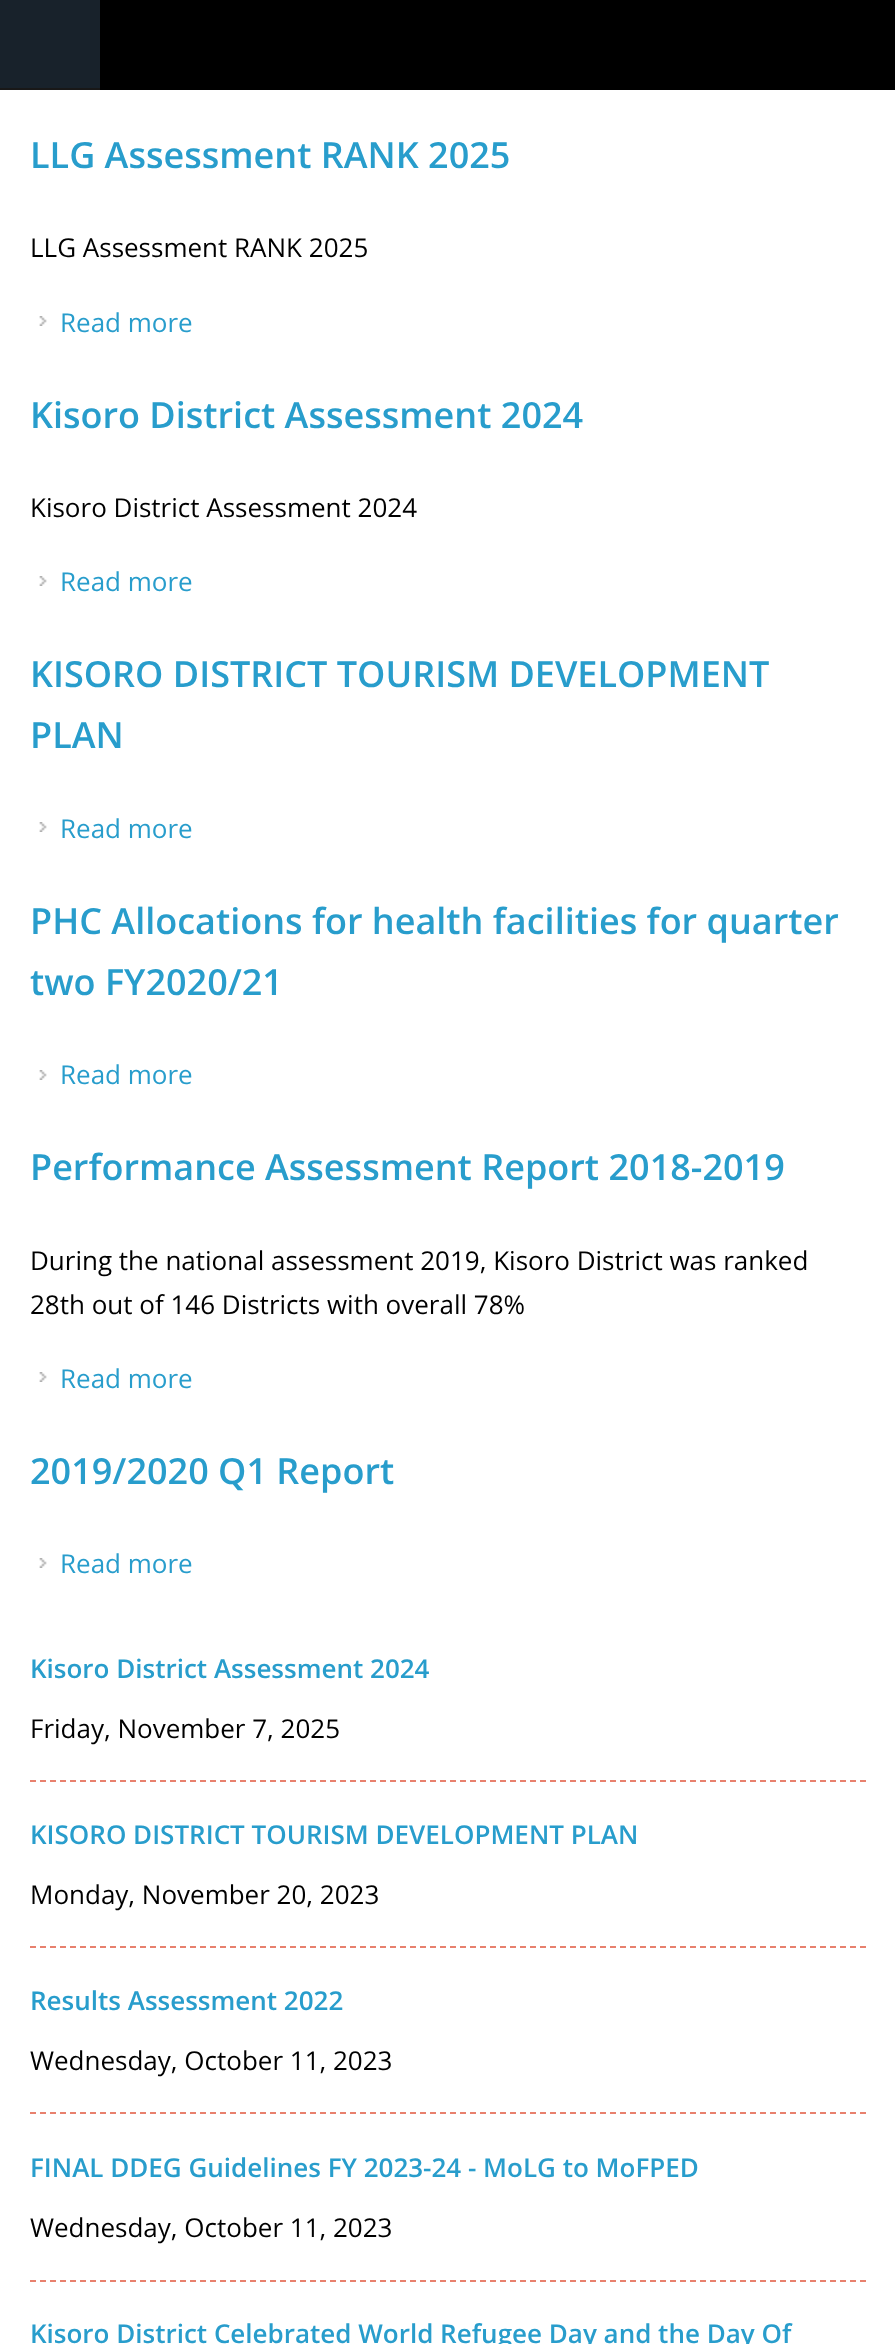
<?xml version="1.0" encoding="UTF-8"?>
<svg xmlns="http://www.w3.org/2000/svg" width="895" height="2344">
    <rect width="100%" height="100%" fill="#FFFFFF"/>
    <rect x="100" y="0" width="795" height="90" fill="#000000"/>
    <rect x="0" y="0" width="100" height="88" fill="#18222B"/>
    <rect x="0" y="88" width="100" height="2" fill="#181818"/>
    <text x="30" y="168" font-family="Open Sans" font-size="36" font-weight="600" fill="#289DCC">LLG Assessment RANK 2025</text>
    <text x="30" y="257" font-family="Open Sans" font-size="26" fill="#000000">LLG Assessment RANK 2025</text>
    <image x="39" y="316" width="8" height="10" href="img_01.png"/>
    <text x="60" y="332" font-family="Open Sans" font-size="26" fill="#289DCC">Read more</text>
    <text x="30" y="428" font-family="Open Sans" font-size="36" font-weight="600" fill="#289DCC">Kisoro District Assessment 2024</text>
    <text x="30" y="517" font-family="Open Sans" font-size="26" fill="#000000">Kisoro District Assessment 2024</text>
    <image x="39" y="576" width="8" height="10" href="img_01.png"/>
    <text x="60" y="591" font-family="Open Sans" font-size="26" fill="#289DCC">Read more</text>
    <text font-family="Open Sans" font-size="36" font-weight="600" fill="#289DCC">
        <tspan x="30" y="687">KISORO DISTRICT TOURISM DEVELOPMENT</tspan>
        <tspan x="30" y="748">PLAN</tspan>
    </text>
    <image x="39" y="822" width="8" height="10" href="img_01.png"/>
    <text x="60" y="838" font-family="Open Sans" font-size="26" fill="#289DCC">Read more</text>
    <text font-family="Open Sans" font-size="36" font-weight="600" fill="#289DCC">
        <tspan x="30" y="934">PHC Allocations for health facilities for quarter</tspan>
        <tspan x="30" y="995">two FY2020/21</tspan>
    </text>
    <image x="39" y="1070" width="8" height="10" href="img_01.png"/>
    <text x="60" y="1084" font-family="Open Sans" font-size="26" fill="#289DCC">Read more</text>
    <text x="30" y="1180" font-family="Open Sans" font-size="36" font-weight="600" fill="#289DCC">Performance Assessment Report 2018-2019</text>
    <text font-family="Open Sans" font-size="26" fill="#000000">
        <tspan x="30" y="1270">During the national assessment 2019, Kisoro District was ranked</tspan>
        <tspan x="30" y="1314">28th out of 146 Districts with overall 78%</tspan>
    </text>
    <image x="39" y="1372" width="8" height="10" href="img_01.png"/>
    <text x="60" y="1388" font-family="Open Sans" font-size="26" fill="#289DCC">Read more</text>
    <text x="30" y="1484" font-family="Open Sans" font-size="36" font-weight="600" fill="#289DCC">2019/2020 Q1 Report</text>
    <image x="39" y="1558" width="8" height="10" href="img_01.png"/>
    <text x="60" y="1573" font-family="Open Sans" font-size="26" fill="#289DCC">Read more</text>
    <text x="30" y="1678" font-family="Open Sans" font-size="26" font-weight="600" fill="#289DCC">Kisoro District Assessment 2024</text>
    <path d="M 30 1781 H 866" fill="none" stroke="#E8816E" stroke-width="2" stroke-dasharray="6 4"/>
    <text x="30" y="1738" font-family="Open Sans" font-size="26" fill="#000000">Friday, November 7, 2025</text>
    <text x="30" y="1844" font-family="Open Sans" font-size="26" font-weight="600" fill="#289DCC">KISORO DISTRICT TOURISM DEVELOPMENT PLAN</text>
    <path d="M 30 1947 H 866" fill="none" stroke="#E8816E" stroke-width="2" stroke-dasharray="6 4"/>
    <text x="30" y="1904" font-family="Open Sans" font-size="26" fill="#000000">Monday, November 20, 2023</text>
    <text x="30" y="2010" font-family="Open Sans" font-size="26" font-weight="600" fill="#289DCC">Results Assessment 2022</text>
    <path d="M 30 2113 H 866" fill="none" stroke="#E8816E" stroke-width="2" stroke-dasharray="6 4"/>
    <text x="30" y="2070" font-family="Open Sans" font-size="26" fill="#000000">Wednesday, October 11, 2023</text>
    <text x="30" y="2177" font-family="Open Sans" font-size="26" font-weight="600" fill="#289DCC">FINAL DDEG Guidelines FY 2023-24 - MoLG to MoFPED</text>
    <path d="M 30 2281 H 866" fill="none" stroke="#E8816E" stroke-width="2" stroke-dasharray="6 4"/>
    <text x="30" y="2237" font-family="Open Sans" font-size="26" fill="#000000">Wednesday, October 11, 2023</text>
    <text x="30" y="2343" font-family="Open Sans" font-size="26" font-weight="600" fill="#289DCC">Kisoro District Celebrated World Refugee Day and the Day Of</text>
</svg>
